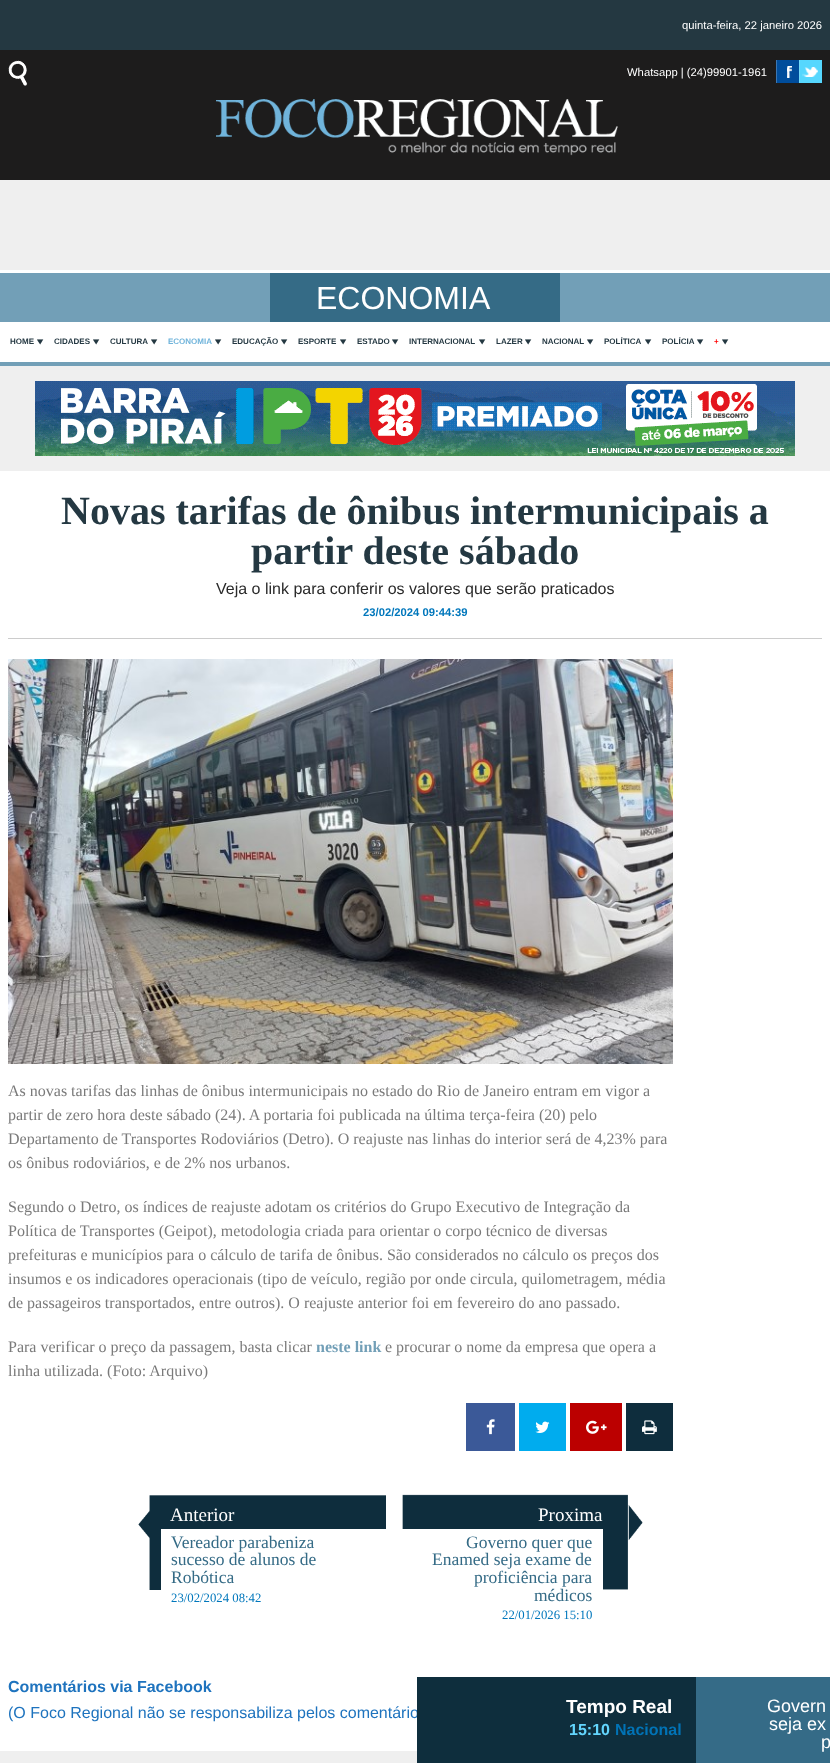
<?xml version="1.0" encoding="UTF-8"?>
<svg xmlns="http://www.w3.org/2000/svg" width="830" height="1763">
    <rect width="100%" height="100%" fill="#EFEFEF"/>
    <rect x="0" y="50" width="830" height="130" fill="#1D1C1C"/>
    <rect x="0" y="0" width="830" height="50" fill="#243841"/>
    <text x="682" y="29" font-family="Liberation Sans" font-size="11.25" fill="#FFFFFF">quinta-feira, 22 janeiro 2026</text>
    <image x="8" y="60" width="20" height="26" href="img_01.png"/>
    <text x="627" y="76" font-family="Liberation Sans" font-size="11.25" fill="#FFFFFF">Whatsapp | (24)99901-1961</text>
    <image x="776" y="60" width="23" height="23" href="img_02.png"/>
    <image x="799" y="60" width="23" height="23" href="img_03.png"/>
    <image x="216" y="99" width="402" height="57" href="img_04.png"/>
    <rect x="0" y="273" width="830" height="49" fill="#729FB7"/>
    <rect x="0" y="270" width="830" height="3" fill="#FFFFFF"/>
    <rect x="270" y="273" width="290" height="49" fill="#356B86"/>
    <text x="316" y="309" font-family="Liberation Sans" font-size="32" fill="#FFFFFF">ECONOMIA</text>
    <rect x="0" y="322" width="830" height="40" fill="#FFFFFF"/>
    <rect x="0" y="362" width="830" height="4" fill="#729FB7"/>
    <image x="37" y="339" width="7" height="6" href="img_05.png"/>
    <text x="10" y="344" font-family="Liberation Sans" font-size="8" font-weight="700" fill="#243842">HOME</text>
    <image x="93" y="339" width="7" height="6" href="img_05.png"/>
    <text x="54" y="344" font-family="Liberation Sans" font-size="8" font-weight="700" fill="#243842">CIDADES</text>
    <image x="151" y="339" width="7" height="6" href="img_05.png"/>
    <text x="110" y="344" font-family="Liberation Sans" font-size="8" font-weight="700" fill="#243842">CULTURA</text>
    <image x="215" y="339" width="7" height="6" href="img_05.png"/>
    <text x="168" y="344" font-family="Liberation Sans" font-size="8" font-weight="700" fill="#70B4DB">ECONOMIA</text>
    <image x="281" y="339" width="7" height="6" href="img_05.png"/>
    <text x="232" y="344" font-family="Liberation Sans" font-size="8" font-weight="700" fill="#243842">EDUCAÇÃO</text>
    <image x="340" y="339" width="7" height="6" href="img_05.png"/>
    <text x="298" y="344" font-family="Liberation Sans" font-size="8" font-weight="700" fill="#243842">ESPORTE</text>
    <image x="392" y="339" width="7" height="6" href="img_05.png"/>
    <text x="357" y="344" font-family="Liberation Sans" font-size="8" font-weight="700" fill="#243842">ESTADO</text>
    <image x="479" y="339" width="7" height="6" href="img_05.png"/>
    <text x="409" y="344" font-family="Liberation Sans" font-size="8" font-weight="700" fill="#243842">INTERNACIONAL</text>
    <image x="525" y="339" width="7" height="6" href="img_05.png"/>
    <text x="496" y="344" font-family="Liberation Sans" font-size="8" font-weight="700" fill="#243842">LAZER</text>
    <image x="587" y="339" width="7" height="6" href="img_05.png"/>
    <text x="542" y="344" font-family="Liberation Sans" font-size="8" font-weight="700" fill="#243842">NACIONAL</text>
    <image x="645" y="339" width="7" height="6" href="img_05.png"/>
    <text x="604" y="344" font-family="Liberation Sans" font-size="8" font-weight="700" fill="#243842">POLÍTICA</text>
    <image x="697" y="339" width="7" height="6" href="img_05.png"/>
    <text x="662" y="344" font-family="Liberation Sans" font-size="8" font-weight="700" fill="#243842">POLÍCIA</text>
    <image x="722" y="339" width="7" height="6" href="img_05.png"/>
    <text x="714" y="344" font-family="Liberation Sans" font-size="8" font-weight="700" fill="#FF0000">+</text>
    <image x="35" y="381" width="760" height="75" href="img_06.png"/>
    <rect x="0" y="471" width="830" height="1280" fill="#FFFFFF"/>
    <rect x="8" y="638" width="814" height="1" fill="#CCCCCC"/>
    <text x="61" y="524" font-family="Liberation Serif" font-size="40" font-weight="700" fill="#243842">Novas tarifas de ônibus intermunicipais a</text>
    <text x="251" y="564" font-family="Liberation Serif" font-size="40" font-weight="700" fill="#243842">partir deste sábado</text>
    <text x="216" y="594" font-family="Liberation Sans" font-size="16" fill="#2A2A2A">Veja o link para conferir os valores que serão praticados</text>
    <text x="363" y="616" font-family="Liberation Sans" font-size="11.25" font-weight="700" fill="#0077BC">23/02/2024 09:44:39</text>
    <image x="8" y="659" width="665" height="405" href="img_07.png"/>
    <text font-family="Liberation Serif" font-size="16" fill="#7A7A7A">
        <tspan x="8" y="1096">As novas tarifas das linhas de ônibus intermunicipais no estado do Rio de Janeiro entram em vigor a</tspan>
        <tspan x="8" y="1120">partir de zero hora deste sábado (24). A portaria foi publicada na última terça-feira (20) pelo</tspan>
        <tspan x="8" y="1144">Departamento de Transportes Rodoviários (Detro). O reajuste nas linhas do interior será de 4,23% para</tspan>
        <tspan x="8" y="1168">os ônibus rodoviários, e de 2% nos urbanos.</tspan>
    </text>
    <text font-family="Liberation Serif" font-size="16" fill="#7A7A7A">
        <tspan x="8" y="1212">Segundo o Detro, os índices de reajuste adotam os critérios do Grupo Executivo de Integração da</tspan>
        <tspan x="8" y="1236">Política de Transportes (Geipot), metodologia criada para orientar o corpo técnico de diversas</tspan>
        <tspan x="8" y="1260">prefeituras e municípios para o cálculo de tarifa de ônibus. São considerados no cálculo os preços dos</tspan>
        <tspan x="8" y="1284">insumos e os indicadores operacionais (tipo de veículo, região por onde circula, quilometragem, média</tspan>
        <tspan x="8" y="1308">de passageiros transportados, entre outros). O reajuste anterior foi em fevereiro do ano passado.</tspan>
    </text>
    <text x="8" y="1352" font-family="Liberation Serif" font-size="16" fill="#7A7A7A">Para verificar o preço da passagem, basta clicar</text>
    <text x="316" y="1352" font-family="Liberation Serif" font-size="16" font-weight="700" fill="#729FB7">neste link</text>
    <text x="385" y="1352" font-family="Liberation Serif" font-size="16" fill="#7A7A7A">e procurar o nome da empresa que opera a</text>
    <text x="8" y="1376" font-family="Liberation Serif" font-size="16" fill="#7A7A7A">linha utilizada. (Foto: Arquivo)</text>
    <rect x="466" y="1403" width="49" height="48" fill="#3B5998"/>
    <image x="486" y="1419" width="9" height="16" href="img_08.png"/>
    <rect x="519" y="1403" width="47" height="48" fill="#00ACEE"/>
    <image x="535" y="1421" width="15" height="12" href="img_09.png"/>
    <rect x="570" y="1403" width="52" height="48" fill="#BB0000"/>
    <image x="586" y="1420" width="21" height="14" href="img_10.png"/>
    <rect x="626" y="1403" width="47" height="48" fill="#0E2D3D"/>
    <image x="642" y="1420" width="15" height="15" href="img_11.png"/>
    <image x="138" y="1495" width="248" height="95" href="img_12.png"/>
    <text x="170" y="1521" font-family="Liberation Serif" font-size="19" fill="#FFFFFF">Anterior</text>
    <rect x="161" y="1529" width="216" height="61" fill="#FFFFFF"/>
    <text font-family="Liberation Serif" font-size="17.5" fill="#356B86">
        <tspan x="171" y="1548">Vereador parabeniza</tspan>
        <tspan x="171" y="1565">sucesso de alunos de</tspan>
        <tspan x="171" y="1583">Robótica</tspan>
    </text>
    <text x="171" y="1602" font-family="Liberation Serif" font-size="12.75" fill="#0077BC">23/02/2024 08:42</text>
    <image x="402" y="1494" width="241" height="96" href="img_13.png"/>
    <text x="538" y="1521" font-family="Liberation Serif" font-size="19" fill="#FFFFFF">Proxima</text>
    <rect x="377" y="1529" width="226" height="61" fill="#FFFFFF"/>
    <text x="466" y="1548" font-family="Liberation Serif" font-size="17.5" fill="#356B86">Governo quer que</text>
    <text x="432" y="1565" font-family="Liberation Serif" font-size="17.5" fill="#356B86">Enamed seja exame de</text>
    <text x="474" y="1583" font-family="Liberation Serif" font-size="17.5" fill="#356B86">proficiência para</text>
    <text x="534" y="1601" font-family="Liberation Serif" font-size="17.5" fill="#356B86">médicos</text>
    <text x="502" y="1619" font-family="Liberation Serif" font-size="12.75" fill="#0077BC">22/01/2026 15:10</text>
    <text x="8" y="1692" font-family="Liberation Sans" font-size="16" font-weight="700" fill="#1E73BE">Comentários via Facebook</text>
    <text x="8" y="1718" font-family="Liberation Sans" font-size="16" fill="#1E73BE">(O Foco Regional não se responsabiliza pelos comentário</text>
    <rect x="417" y="1677" width="279" height="86" fill="#0E2E3D"/>
    <text x="566" y="1713" font-family="Liberation Sans" font-size="19" font-weight="700" fill="#FFFFFF">Tempo Real</text>
    <text x="569" y="1735" font-family="Liberation Sans" font-size="16" font-weight="700" fill="#63D5FD">15:10</text>
    <text x="615" y="1735" font-family="Liberation Sans" font-size="16" font-weight="700" fill="#0173B6">Nacional</text>
    <rect x="696" y="1677" width="134" height="86" fill="#356B87"/>
    <text x="767" y="1712" font-family="Liberation Sans" font-size="18" fill="#FFFFFF">Govern</text>
    <text x="769" y="1730" font-family="Liberation Sans" font-size="18" fill="#FFFFFF">seja ex</text>
    <text x="821" y="1748" font-family="Liberation Sans" font-size="18" fill="#FFFFFF">p</text>
</svg>
